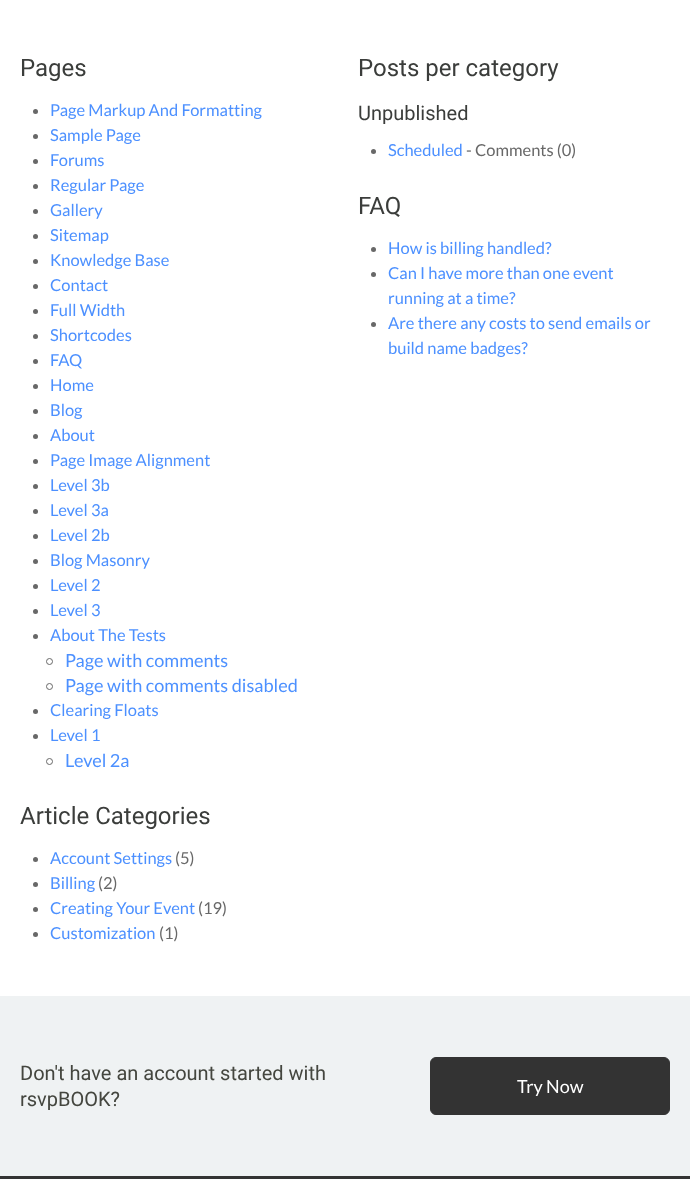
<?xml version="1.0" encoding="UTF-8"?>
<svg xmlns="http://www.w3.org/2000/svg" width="690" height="1179">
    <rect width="100%" height="100%" fill="#FFFFFF"/>
    <text x="20" y="76" font-family="Roboto" font-size="24" fill="#3B3D3B">Pages</text>
    <circle cx="35.5" cy="111.5" r="2.5" fill="#686868"/>
    <text x="50" y="116" font-family="Lato" font-size="16.5" fill="#4C90FF">Page Markup And Formatting</text>
    <circle cx="35.5" cy="136.5" r="2.5" fill="#686868"/>
    <text x="50" y="141" font-family="Lato" font-size="16.5" fill="#4C90FF">Sample Page</text>
    <circle cx="35.5" cy="161.5" r="2.5" fill="#686868"/>
    <text x="50" y="166" font-family="Lato" font-size="16.5" fill="#4C90FF">Forums</text>
    <circle cx="35.5" cy="186.5" r="2.5" fill="#686868"/>
    <text x="50" y="191" font-family="Lato" font-size="16.5" fill="#4C90FF">Regular Page</text>
    <circle cx="35.5" cy="211.5" r="2.5" fill="#686868"/>
    <text x="50" y="216" font-family="Lato" font-size="16.5" fill="#4C90FF">Gallery</text>
    <circle cx="35.5" cy="236.5" r="2.5" fill="#686868"/>
    <text x="50" y="241" font-family="Lato" font-size="16.5" fill="#4C90FF">Sitemap</text>
    <circle cx="35.5" cy="261.5" r="2.5" fill="#686868"/>
    <text x="50" y="266" font-family="Lato" font-size="16.5" fill="#4C90FF">Knowledge Base</text>
    <circle cx="35.5" cy="286.5" r="2.5" fill="#686868"/>
    <text x="50" y="291" font-family="Lato" font-size="16.5" fill="#4C90FF">Contact</text>
    <circle cx="35.5" cy="311.5" r="2.5" fill="#686868"/>
    <text x="50" y="316" font-family="Lato" font-size="16.5" fill="#4C90FF">Full Width</text>
    <circle cx="35.5" cy="336.5" r="2.5" fill="#686868"/>
    <text x="50" y="341" font-family="Lato" font-size="16.5" fill="#4C90FF">Shortcodes</text>
    <circle cx="35.5" cy="361.5" r="2.5" fill="#686868"/>
    <text x="50" y="366" font-family="Lato" font-size="16.5" fill="#4C90FF">FAQ</text>
    <circle cx="35.5" cy="386.5" r="2.5" fill="#686868"/>
    <text x="50" y="391" font-family="Lato" font-size="16.5" fill="#4C90FF">Home</text>
    <circle cx="35.5" cy="411.5" r="2.5" fill="#686868"/>
    <text x="50" y="416" font-family="Lato" font-size="16.5" fill="#4C90FF">Blog</text>
    <circle cx="35.5" cy="436.5" r="2.5" fill="#686868"/>
    <text x="50" y="441" font-family="Lato" font-size="16.5" fill="#4C90FF">About</text>
    <circle cx="35.5" cy="461.5" r="2.5" fill="#686868"/>
    <text x="50" y="466" font-family="Lato" font-size="16.5" fill="#4C90FF">Page Image Alignment</text>
    <circle cx="35.5" cy="486.5" r="2.5" fill="#686868"/>
    <text x="50" y="491" font-family="Lato" font-size="16.5" fill="#4C90FF">Level 3b</text>
    <circle cx="35.5" cy="511.5" r="2.5" fill="#686868"/>
    <text x="50" y="516" font-family="Lato" font-size="16.5" fill="#4C90FF">Level 3a</text>
    <circle cx="35.5" cy="536.5" r="2.5" fill="#686868"/>
    <text x="50" y="541" font-family="Lato" font-size="16.5" fill="#4C90FF">Level 2b</text>
    <circle cx="35.5" cy="561.5" r="2.5" fill="#686868"/>
    <text x="50" y="566" font-family="Lato" font-size="16.5" fill="#4C90FF">Blog Masonry</text>
    <circle cx="35.5" cy="586.5" r="2.5" fill="#686868"/>
    <text x="50" y="591" font-family="Lato" font-size="16.5" fill="#4C90FF">Level 2</text>
    <circle cx="35.5" cy="611.5" r="2.5" fill="#686868"/>
    <text x="50" y="616" font-family="Lato" font-size="16.5" fill="#4C90FF">Level 3</text>
    <circle cx="35.5" cy="636.5" r="2.5" fill="#686868"/>
    <text x="50" y="641" font-family="Lato" font-size="16.5" fill="#4C90FF">About The Tests</text>
    <circle cx="49.5" cy="661.5" r="3" fill="none" stroke="#686868"/>
    <text x="65" y="667" font-family="Lato" font-size="18.1" fill="#4C90FF">Page with comments</text>
    <circle cx="49.5" cy="686.5" r="3" fill="none" stroke="#686868"/>
    <text x="65" y="692" font-family="Lato" font-size="18.1" fill="#4C90FF">Page with comments disabled</text>
    <circle cx="35.5" cy="711.5" r="2.5" fill="#686868"/>
    <text x="50" y="716" font-family="Lato" font-size="16.5" fill="#4C90FF">Clearing Floats</text>
    <circle cx="35.5" cy="736.5" r="2.5" fill="#686868"/>
    <text x="50" y="741" font-family="Lato" font-size="16.5" fill="#4C90FF">Level 1</text>
    <circle cx="49.5" cy="761.5" r="3" fill="none" stroke="#686868"/>
    <text x="65" y="767" font-family="Lato" font-size="18.1" fill="#4C90FF">Level 2a</text>
    <text x="20" y="824" font-family="Roboto" font-size="24" fill="#3B3D3B">Article Categories</text>
    <circle cx="35.5" cy="859.5" r="2.5" fill="#686868"/>
    <text x="50" y="864" font-family="Lato" font-size="16.5" fill="#4C90FF">Account Settings</text>
    <text x="175" y="864" font-family="Lato" font-size="16.5" fill="#686868">(5)</text>
    <circle cx="35.5" cy="884.5" r="2.5" fill="#686868"/>
    <text x="50" y="889" font-family="Lato" font-size="16.5" fill="#4C90FF">Billing</text>
    <text x="98" y="889" font-family="Lato" font-size="16.5" fill="#686868">(2)</text>
    <circle cx="35.5" cy="909.5" r="2.5" fill="#686868"/>
    <text x="50" y="914" font-family="Lato" font-size="16.5" fill="#4C90FF">Creating Your Event</text>
    <text x="198" y="914" font-family="Lato" font-size="16.5" fill="#686868">(19)</text>
    <circle cx="35.5" cy="934.5" r="2.5" fill="#686868"/>
    <text x="50" y="939" font-family="Lato" font-size="16.5" fill="#4C90FF">Customization</text>
    <text x="159" y="939" font-family="Lato" font-size="16.5" fill="#686868">(1)</text>
    <text x="358" y="76" font-family="Roboto" font-size="24" fill="#3B3D3B">Posts per category</text>
    <text x="358" y="120" font-family="Roboto" font-size="20" fill="#3B3D3B">Unpublished</text>
    <circle cx="373.5" cy="151.5" r="2.5" fill="#686868"/>
    <text x="388" y="156" font-family="Lato" font-size="16.5" fill="#4C90FF">Scheduled</text>
    <text x="466" y="156" font-family="Lato" font-size="16.5" fill="#686868">- Comments (0)</text>
    <text x="358" y="214" font-family="Roboto" font-size="24" fill="#3B3D3B">FAQ</text>
    <circle cx="373.5" cy="249.5" r="2.5" fill="#686868"/>
    <text x="388" y="254" font-family="Lato" font-size="16.5" fill="#4C90FF">How is billing handled?</text>
    <circle cx="373.5" cy="274.5" r="2.5" fill="#686868"/>
    <text font-family="Lato" font-size="16.5" fill="#4C90FF">
        <tspan x="388" y="279">Can I have more than one event</tspan>
        <tspan x="388" y="304">running at a time?</tspan>
    </text>
    <circle cx="373.5" cy="324.5" r="2.5" fill="#686868"/>
    <text font-family="Lato" font-size="16.5" fill="#4C90FF">
        <tspan x="388" y="329">Are there any costs to send emails or</tspan>
        <tspan x="388" y="354">build name badges?</tspan>
    </text>
    <rect x="0" y="996" width="690" height="180" fill="#EFF2F3"/>
    <text font-family="Roboto" font-size="20" fill="#44463F">
        <tspan x="20" y="1080">Don't have an account started with</tspan>
        <tspan x="20" y="1106">rsvpBOOK?</tspan>
    </text>
    <rect x="430.5" y="1057.5" width="239" height="57" rx="5.5" fill="#333333" stroke="#333333"/>
    <text x="517" y="1093" font-family="Lato" font-size="18" fill="#FFFFFF">Try Now</text>
    <rect x="0" y="1176" width="690" height="3" fill="#333333"/>
</svg>
